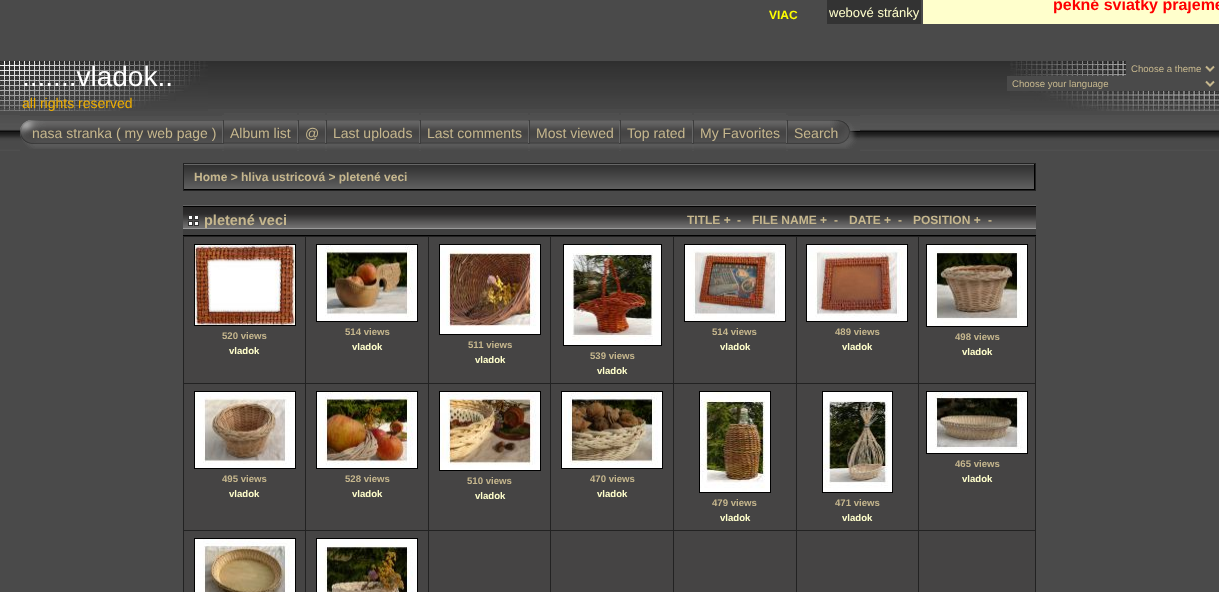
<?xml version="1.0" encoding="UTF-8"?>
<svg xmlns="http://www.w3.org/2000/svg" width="1219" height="592">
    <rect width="100%" height="100%" fill="#4A4A4A"/>
    <text x="769" y="19" font-family="Liberation Sans" font-size="12" font-weight="700" fill="#FFFF00">VIAC</text>
    <rect x="827" y="0" width="94" height="24" fill="#333333"/>
    <text x="829" y="17" font-family="Liberation Sans" font-size="13" fill="#FFFFCC">webové stránky</text>
    <rect x="923" y="0" width="296" height="24" fill="#FFFFCC"/>
    <text x="1053" y="10" font-family="Liberation Sans" font-size="16" font-weight="700" fill="#FF0000">pekné sviatky prajeme</text>
    <image x="208" y="61" width="802" height="48" href="img_01.png"/>
    <image x="0" y="61" width="208" height="50" href="img_02.png"/>
    <image x="1010" y="61" width="209" height="50" href="img_03.png"/>
    <text x="22" y="86" font-family="Liberation Sans" font-size="28" fill="#FFFFFF">.......vladok..</text>
    <rect x="1126" y="61" width="93" height="15" fill="#4A4A4A"/>
    <path d="M 1206 66.5 L 1210 70.5 L 1214 66.5" fill="none" stroke="#C6B78E" stroke-width="2"/>
    <text x="1131" y="72" font-family="Liberation Sans" font-size="9.6" fill="#C6B78E">Choose a theme</text>
    <rect x="1007" y="76" width="212" height="15" fill="#4A4A4A"/>
    <path d="M 1206 81.5 L 1210 85.5 L 1214 81.5" fill="none" stroke="#C6B78E" stroke-width="2"/>
    <text x="1012" y="87" font-family="Liberation Sans" font-size="9.6" fill="#C6B78E">Choose your language</text>
    <text x="22" y="108" font-family="Liberation Sans" font-size="14" fill="#F0AF00">all rights reserved</text>
    <image x="0" y="115" width="1219" height="36" href="img_04.png"/>
    <rect x="20" y="115" width="202" height="36" fill="#4A4A4A"/>
    <image x="20" y="116" width="202" height="33" href="img_05.png"/>
    <text x="32" y="138" font-family="Liberation Sans" font-size="14" fill="#C6B78E">nasa stranka ( my web page )</text>
    <image x="222" y="120" width="2" height="29" href="img_06.png"/>
    <rect x="224" y="150" width="73" height="1" fill="#4A4A4A"/>
    <image x="224" y="113" width="73" height="36" href="img_07.png"/>
    <text x="230" y="138" font-family="Liberation Sans" font-size="14" fill="#C6B78E">Album list</text>
    <image x="297" y="120" width="2" height="29" href="img_06.png"/>
    <rect x="299" y="150" width="26" height="1" fill="#4A4A4A"/>
    <image x="299" y="113" width="26" height="36" href="img_08.png"/>
    <text x="305" y="138" font-family="Liberation Sans" font-size="14" fill="#C6B78E">@</text>
    <image x="325" y="120" width="2" height="29" href="img_06.png"/>
    <rect x="327" y="150" width="92" height="1" fill="#4A4A4A"/>
    <image x="327" y="113" width="92" height="36" href="img_09.png"/>
    <text x="333" y="138" font-family="Liberation Sans" font-size="14" fill="#C6B78E">Last uploads</text>
    <image x="419" y="120" width="2" height="29" href="img_06.png"/>
    <rect x="421" y="150" width="107" height="1" fill="#4A4A4A"/>
    <image x="421" y="113" width="107" height="36" href="img_10.png"/>
    <text x="427" y="138" font-family="Liberation Sans" font-size="14" fill="#C6B78E">Last comments</text>
    <image x="528" y="120" width="2" height="29" href="img_06.png"/>
    <rect x="530" y="150" width="89" height="1" fill="#4A4A4A"/>
    <image x="530" y="113" width="89" height="36" href="img_11.png"/>
    <text x="536" y="138" font-family="Liberation Sans" font-size="14" fill="#C6B78E">Most viewed</text>
    <image x="619" y="120" width="2" height="29" href="img_06.png"/>
    <rect x="621" y="150" width="71" height="1" fill="#4A4A4A"/>
    <image x="621" y="113" width="71" height="36" href="img_12.png"/>
    <text x="627" y="138" font-family="Liberation Sans" font-size="14" fill="#C6B78E">Top rated</text>
    <image x="692" y="120" width="2" height="29" href="img_06.png"/>
    <rect x="694" y="150" width="92" height="1" fill="#4A4A4A"/>
    <image x="694" y="113" width="92" height="36" href="img_09.png"/>
    <text x="700" y="138" font-family="Liberation Sans" font-size="14" fill="#C6B78E">My Favorites</text>
    <image x="786" y="120" width="2" height="29" href="img_06.png"/>
    <rect x="788" y="115" width="72" height="36" fill="#4A4A4A"/>
    <image x="788" y="116" width="72" height="33" href="img_13.png"/>
    <text x="794" y="138" font-family="Liberation Sans" font-size="14" fill="#C6B78E">Search</text>
    <rect x="183" y="163" width="853" height="28" fill="#222222"/>
    <image x="184" y="164" width="850" height="25" href="img_14.png"/>
    <rect x="1034" y="164" width="1" height="26" fill="#000000"/>
    <rect x="184" y="189" width="851" height="1" fill="#000000"/>
    <text x="194" y="181" font-family="Liberation Sans" font-size="12" font-weight="700" fill="#C6B78E">Home &gt; hliva ustricová &gt; pletené veci</text>
    <rect x="183" y="235" width="853" height="1" fill="#000000"/>
    <image x="183" y="205" width="21" height="30" href="img_15.png"/>
    <image x="188" y="216" width="11" height="10" href="img_16.png"/>
    <image x="204" y="205" width="791" height="30" href="img_17.png"/>
    <text x="204" y="225" font-family="Liberation Sans" font-size="14.5" font-weight="700" fill="#C6B78E">pletené veci</text>
    <text x="687" y="224" font-family="Liberation Sans" font-size="12" font-weight="700" fill="#C6B78E">TITLE +</text>
    <text x="737" y="224" font-family="Liberation Sans" font-size="12" font-weight="700" fill="#C6B78E">-</text>
    <text x="752" y="224" font-family="Liberation Sans" font-size="12" font-weight="700" fill="#C6B78E">FILE NAME +</text>
    <text x="834" y="224" font-family="Liberation Sans" font-size="12" font-weight="700" fill="#C6B78E">-</text>
    <text x="849" y="224" font-family="Liberation Sans" font-size="12" font-weight="700" fill="#C6B78E">DATE +</text>
    <text x="898" y="224" font-family="Liberation Sans" font-size="12" font-weight="700" fill="#C6B78E">-</text>
    <text x="913" y="224" font-family="Liberation Sans" font-size="12" font-weight="700" fill="#C6B78E">POSITION +</text>
    <text x="988" y="224" font-family="Liberation Sans" font-size="12" font-weight="700" fill="#C6B78E">-</text>
    <image x="995" y="205" width="41" height="30" href="img_18.png"/>
    <rect x="183" y="236" width="853" height="356" fill="#222222"/>
    <rect x="184" y="237" width="121" height="146" fill="#454444"/>
    <rect x="194.5" y="244.5" width="101" height="81" fill="none" stroke="#000000"/>
    <image x="195" y="245" width="100" height="80" href="img_19.png"/>
    <text x="222" y="339" font-family="Liberation Sans" font-size="9.6" font-weight="700" fill="#C6B78E">520 views</text>
    <text x="229" y="354" font-family="Liberation Sans" font-size="9.6" font-weight="700" fill="#FFFFCC">vladok</text>
    <rect x="306" y="237" width="122" height="146" fill="#454444"/>
    <rect x="316.5" y="244.5" width="101" height="77" fill="none" stroke="#000000"/>
    <image x="317" y="245" width="100" height="76" href="img_20.png"/>
    <text x="345" y="335" font-family="Liberation Sans" font-size="9.6" font-weight="700" fill="#C6B78E">514 views</text>
    <text x="352" y="350" font-family="Liberation Sans" font-size="9.6" font-weight="700" fill="#FFFFCC">vladok</text>
    <rect x="429" y="237" width="121" height="146" fill="#454444"/>
    <rect x="439.5" y="244.5" width="101" height="90" fill="none" stroke="#000000"/>
    <image x="440" y="245" width="100" height="89" href="img_21.png"/>
    <text x="468" y="348" font-family="Liberation Sans" font-size="9.6" font-weight="700" fill="#C6B78E">511 views</text>
    <text x="475" y="363" font-family="Liberation Sans" font-size="9.6" font-weight="700" fill="#FFFFCC">vladok</text>
    <rect x="551" y="237" width="122" height="146" fill="#454444"/>
    <rect x="563.5" y="244.5" width="98" height="101" fill="none" stroke="#000000"/>
    <image x="564" y="245" width="97" height="100" href="img_22.png"/>
    <text x="590" y="359" font-family="Liberation Sans" font-size="9.6" font-weight="700" fill="#C6B78E">539 views</text>
    <text x="597" y="374" font-family="Liberation Sans" font-size="9.6" font-weight="700" fill="#FFFFCC">vladok</text>
    <rect x="674" y="237" width="122" height="146" fill="#454444"/>
    <rect x="684.5" y="244.5" width="101" height="77" fill="none" stroke="#000000"/>
    <image x="685" y="245" width="100" height="76" href="img_23.png"/>
    <text x="712" y="335" font-family="Liberation Sans" font-size="9.6" font-weight="700" fill="#C6B78E">514 views</text>
    <text x="720" y="350" font-family="Liberation Sans" font-size="9.6" font-weight="700" fill="#FFFFCC">vladok</text>
    <rect x="797" y="237" width="121" height="146" fill="#454444"/>
    <rect x="806.5" y="244.5" width="101" height="77" fill="none" stroke="#000000"/>
    <image x="807" y="245" width="100" height="76" href="img_24.png"/>
    <text x="835" y="335" font-family="Liberation Sans" font-size="9.6" font-weight="700" fill="#C6B78E">489 views</text>
    <text x="842" y="350" font-family="Liberation Sans" font-size="9.6" font-weight="700" fill="#FFFFCC">vladok</text>
    <rect x="919" y="237" width="116" height="146" fill="#454444"/>
    <rect x="926.5" y="244.5" width="101" height="82" fill="none" stroke="#000000"/>
    <image x="927" y="245" width="100" height="81" href="img_25.png"/>
    <text x="955" y="340" font-family="Liberation Sans" font-size="9.6" font-weight="700" fill="#C6B78E">498 views</text>
    <text x="962" y="355" font-family="Liberation Sans" font-size="9.6" font-weight="700" fill="#FFFFCC">vladok</text>
    <rect x="919" y="384" width="116" height="146" fill="#454444"/>
    <rect x="926.5" y="391.5" width="101" height="62" fill="none" stroke="#000000"/>
    <image x="927" y="392" width="100" height="61" href="img_26.png"/>
    <text x="955" y="467" font-family="Liberation Sans" font-size="9.6" font-weight="700" fill="#C6B78E">465 views</text>
    <text x="962" y="482" font-family="Liberation Sans" font-size="9.6" font-weight="700" fill="#FFFFCC">vladok</text>
    <rect x="184" y="384" width="121" height="146" fill="#454444"/>
    <rect x="194.5" y="391.5" width="101" height="77" fill="none" stroke="#000000"/>
    <image x="195" y="392" width="100" height="76" href="img_27.png"/>
    <text x="222" y="482" font-family="Liberation Sans" font-size="9.6" font-weight="700" fill="#C6B78E">495 views</text>
    <text x="229" y="497" font-family="Liberation Sans" font-size="9.6" font-weight="700" fill="#FFFFCC">vladok</text>
    <rect x="306" y="384" width="122" height="146" fill="#454444"/>
    <rect x="316.5" y="391.5" width="101" height="77" fill="none" stroke="#000000"/>
    <image x="317" y="392" width="100" height="76" href="img_28.png"/>
    <text x="345" y="482" font-family="Liberation Sans" font-size="9.6" font-weight="700" fill="#C6B78E">528 views</text>
    <text x="352" y="497" font-family="Liberation Sans" font-size="9.6" font-weight="700" fill="#FFFFCC">vladok</text>
    <rect x="429" y="384" width="121" height="146" fill="#454444"/>
    <rect x="439.5" y="391.5" width="101" height="79" fill="none" stroke="#000000"/>
    <image x="440" y="392" width="100" height="78" href="img_29.png"/>
    <text x="467" y="484" font-family="Liberation Sans" font-size="9.6" font-weight="700" fill="#C6B78E">510 views</text>
    <text x="475" y="499" font-family="Liberation Sans" font-size="9.6" font-weight="700" fill="#FFFFCC">vladok</text>
    <rect x="551" y="384" width="122" height="146" fill="#454444"/>
    <rect x="561.5" y="391.5" width="101" height="77" fill="none" stroke="#000000"/>
    <image x="562" y="392" width="100" height="76" href="img_30.png"/>
    <text x="590" y="482" font-family="Liberation Sans" font-size="9.6" font-weight="700" fill="#C6B78E">470 views</text>
    <text x="597" y="497" font-family="Liberation Sans" font-size="9.6" font-weight="700" fill="#FFFFCC">vladok</text>
    <rect x="674" y="384" width="122" height="146" fill="#454444"/>
    <rect x="699.5" y="391.5" width="71" height="101" fill="none" stroke="#000000"/>
    <image x="700" y="392" width="70" height="100" href="img_31.png"/>
    <text x="712" y="506" font-family="Liberation Sans" font-size="9.6" font-weight="700" fill="#C6B78E">479 views</text>
    <text x="720" y="521" font-family="Liberation Sans" font-size="9.6" font-weight="700" fill="#FFFFCC">vladok</text>
    <rect x="797" y="384" width="121" height="146" fill="#454444"/>
    <rect x="822.5" y="391.5" width="70" height="101" fill="none" stroke="#000000"/>
    <image x="823" y="392" width="69" height="100" href="img_32.png"/>
    <text x="835" y="506" font-family="Liberation Sans" font-size="9.6" font-weight="700" fill="#C6B78E">471 views</text>
    <text x="842" y="521" font-family="Liberation Sans" font-size="9.6" font-weight="700" fill="#FFFFCC">vladok</text>
    <rect x="184" y="531" width="121" height="61" fill="#454444"/>
    <rect x="194.5" y="538.5" width="101" height="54" fill="none" stroke="#000000"/>
    <image x="195" y="539" width="100" height="53" href="img_33.png"/>
    <rect x="306" y="531" width="122" height="61" fill="#454444"/>
    <rect x="316.5" y="538.5" width="101" height="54" fill="none" stroke="#000000"/>
    <image x="317" y="539" width="100" height="53" href="img_34.png"/>
    <rect x="429" y="531" width="121" height="61" fill="#454444"/>
    <rect x="551" y="531" width="122" height="61" fill="#454444"/>
    <rect x="674" y="531" width="122" height="61" fill="#454444"/>
    <rect x="797" y="531" width="121" height="61" fill="#454444"/>
    <rect x="919" y="531" width="116" height="61" fill="#454444"/>
</svg>
